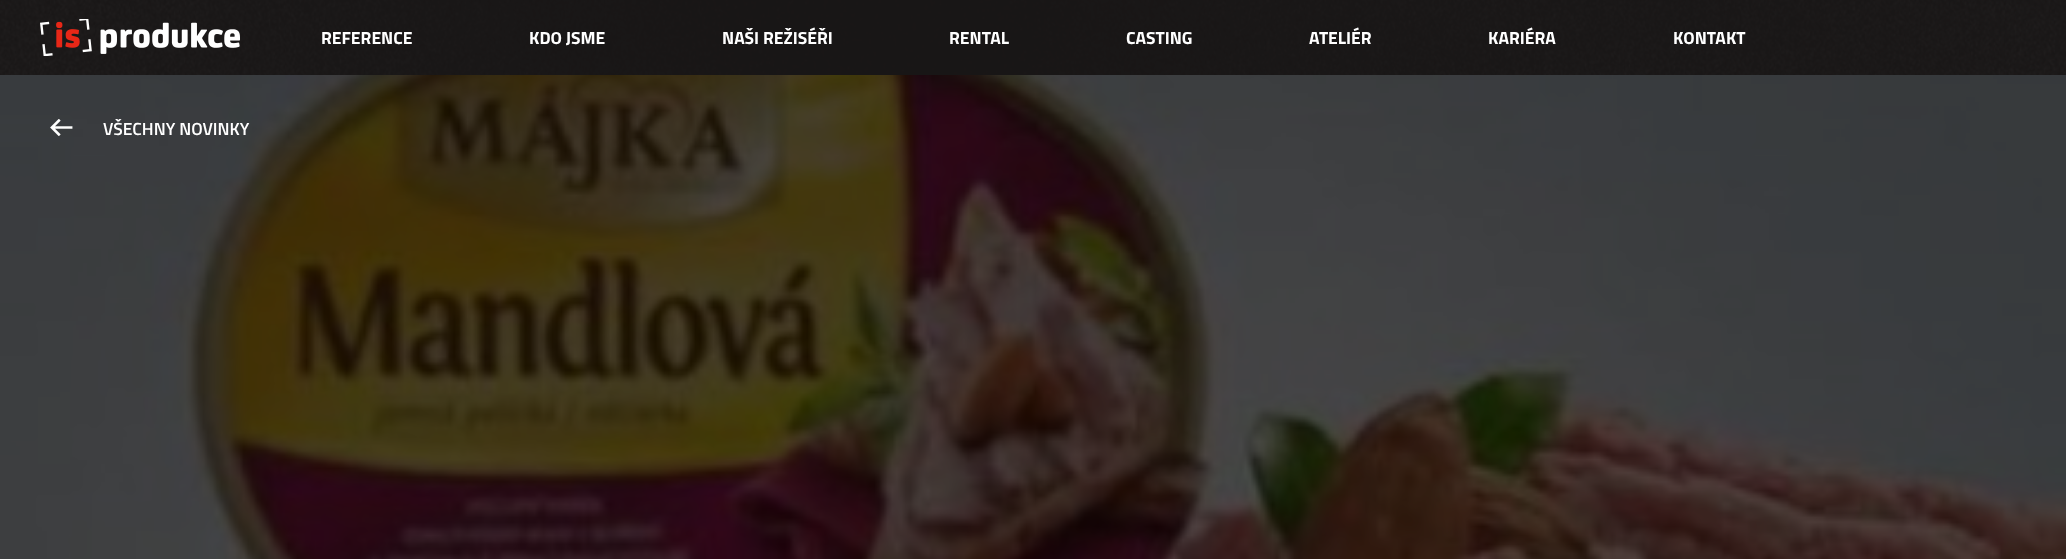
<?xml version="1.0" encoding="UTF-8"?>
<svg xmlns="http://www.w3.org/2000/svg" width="2066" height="559">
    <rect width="100%" height="100%" fill="#1A1818"/>
    <image x="0" y="0" width="2066" height="75" href="img_01.png"/>
    <rect x="0" y="0" width="2066" height="75" fill="#1A1818" fill-opacity="0.85"/>
    <image x="40" y="19" width="200" height="37" href="img_02.png"/>
    <text x="321" y="44" font-family="Titillium Web" font-size="17.5" font-weight="700" fill="#FFFFFF">REFERENCE</text>
    <text x="529" y="44" font-family="Titillium Web" font-size="17.5" font-weight="700" fill="#FFFFFF">KDO JSME</text>
    <text x="722" y="44" font-family="Titillium Web" font-size="17.5" font-weight="700" fill="#FFFFFF">NAŠI REŽISÉŘI</text>
    <text x="949" y="44" font-family="Titillium Web" font-size="17.5" font-weight="700" fill="#FFFFFF">RENTAL</text>
    <text x="1126" y="44" font-family="Titillium Web" font-size="17.5" font-weight="700" fill="#FFFFFF">CASTING</text>
    <text x="1309" y="44" font-family="Titillium Web" font-size="17.5" font-weight="700" fill="#FFFFFF">ATELIÉR</text>
    <text x="1488" y="44" font-family="Titillium Web" font-size="17.5" font-weight="700" fill="#FFFFFF">KARIÉRA</text>
    <text x="1673" y="44" font-family="Titillium Web" font-size="17.5" font-weight="700" fill="#FFFFFF">KONTAKT</text>
    <image x="0" y="75" width="2066" height="484" href="img_03.png"/>
    <image x="50" y="119" width="23" height="17" href="img_04.png"/>
    <text x="103" y="135" font-family="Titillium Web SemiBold" font-size="17.5" font-weight="600" fill="#FFFFFF">VŠECHNY NOVINKY</text>
</svg>
